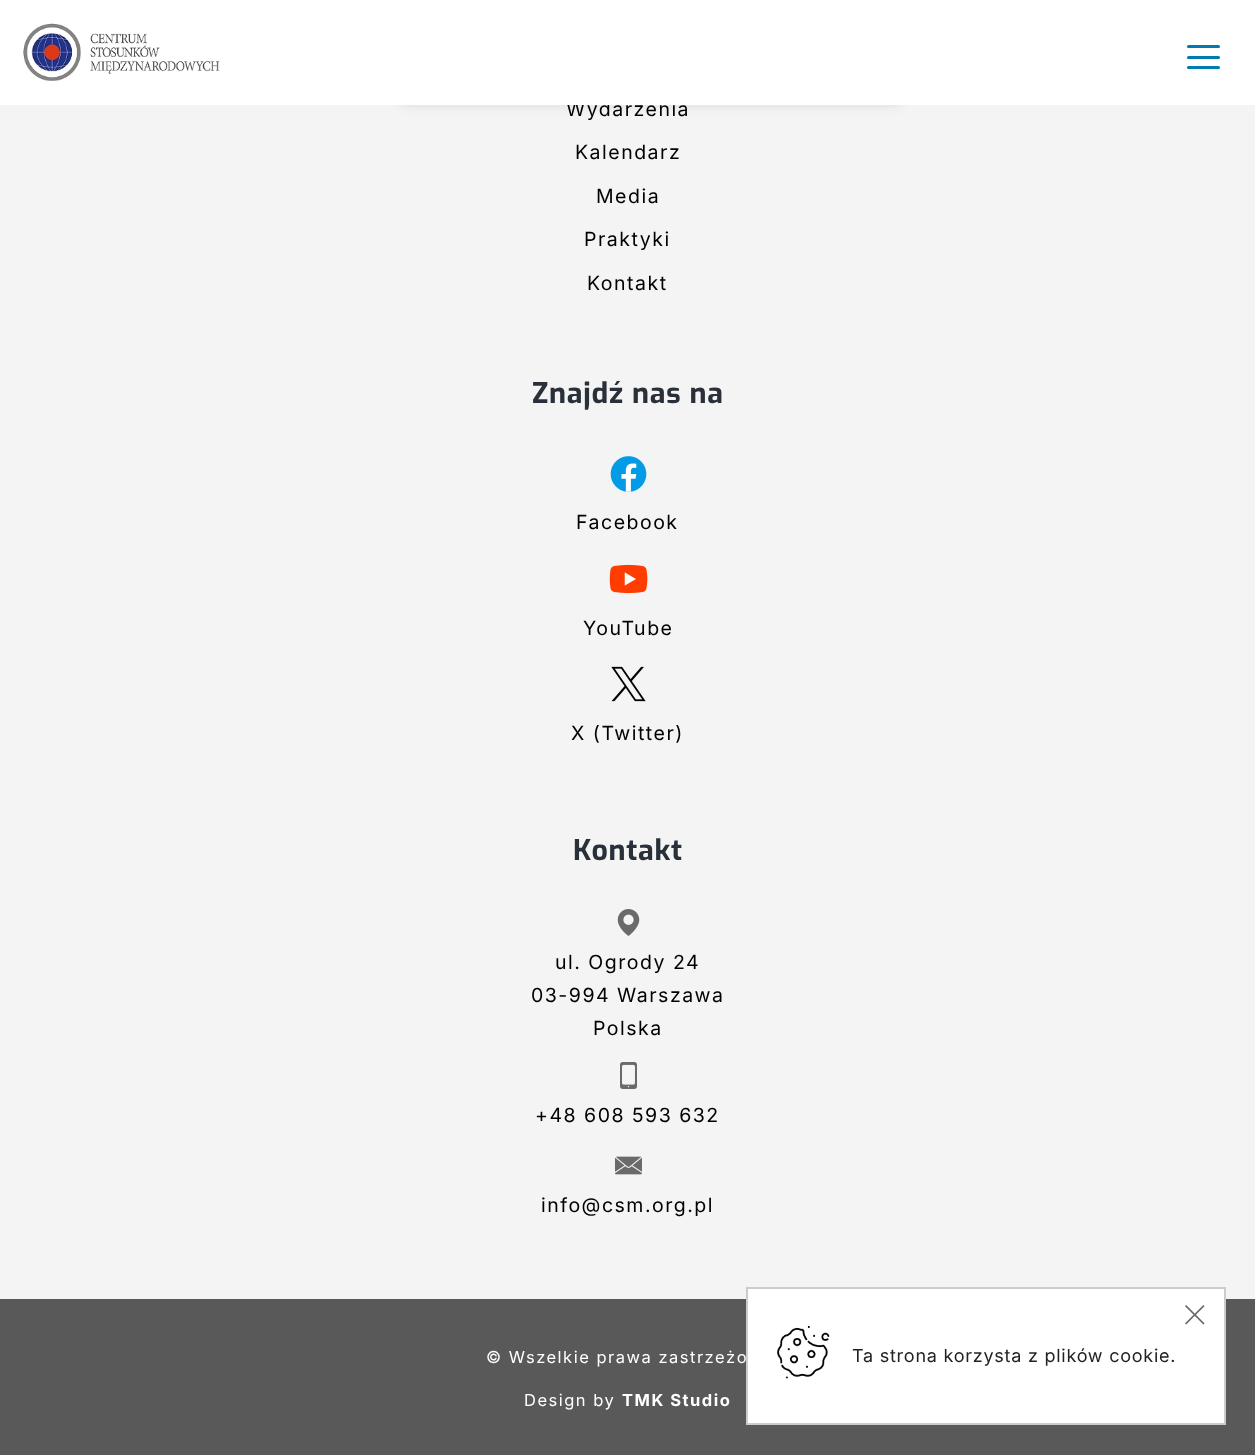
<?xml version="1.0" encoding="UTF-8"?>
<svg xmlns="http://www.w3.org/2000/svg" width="1255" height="1455">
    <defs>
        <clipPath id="clip1"><rect x="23" y="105" width="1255" height="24"/></clipPath>
        <filter id="blur1" x="-50%" y="-200%" width="200%" height="500%"><feGaussianBlur stdDeviation="6"/></filter>
    </defs>
    <rect width="100%" height="100%" fill="#595959"/>
    <rect x="0" y="105" width="1255" height="1194" fill="#F4F4F4"/>
    <text x="566" y="116" font-family="Inter" font-size="19.5" letter-spacing="1.5" fill="#000000">Wydarzenia</text>
    <rect x="0" y="0" width="1255" height="105" fill="#FFFFFF"/>
    <image x="23" y="23" width="197" height="58" href="img_01.png"/>
    <rect x="1187" y="45" width="33" height="3" rx="1.5" fill="#007BB1"/>
    <rect x="1187" y="56" width="33" height="3" rx="1.5" fill="#007BB1"/>
    <rect x="1187" y="66" width="33" height="3" rx="1.5" fill="#007BB1"/>
    <g clip-path="url(#clip1)">
        <rect x="399" y="93" width="503" height="12" rx="6" fill="#000000" fill-opacity="0.1" filter="url(#blur1)"/>
    </g>
    <text x="575" y="159" font-family="Inter" font-size="19.5" letter-spacing="1.5" fill="#000000">Kalendarz</text>
    <text x="596" y="203" font-family="Inter" font-size="19.5" letter-spacing="1.5" fill="#000000">Media</text>
    <text x="584" y="246" font-family="Inter" font-size="19.5" letter-spacing="1.5" fill="#000000">Praktyki</text>
    <text x="587" y="290" font-family="Inter" font-size="19.5" letter-spacing="1.5" fill="#000000">Kontakt</text>
    <text x="532" y="403" font-family="Exo" font-size="28.5" font-weight="700" letter-spacing="0.75" fill="#293039">Znajdź nas na</text>
    <image x="610" y="456" width="37" height="36" href="img_02.png"/>
    <text x="576" y="529" font-family="Inter" font-size="19.5" letter-spacing="1.5" fill="#000000">Facebook</text>
    <image x="609" y="564" width="39" height="30" href="img_03.png"/>
    <text x="583" y="635" font-family="Inter" font-size="19.5" letter-spacing="1.5" fill="#000000">YouTube</text>
    <image x="611" y="666" width="35" height="36" href="img_04.png"/>
    <text x="571" y="740" font-family="Inter" font-size="19.5" letter-spacing="1.5" fill="#000000">X (Twitter)</text>
    <text x="573" y="860" font-family="Exo" font-size="28.5" font-weight="700" letter-spacing="0.75" fill="#293039">Kontakt</text>
    <image x="617" y="909" width="23" height="27" href="img_05.png"/>
    <text x="555" y="969" font-family="Inter" font-size="19.5" letter-spacing="1.5" fill="#000000">ul. Ogrody 24</text>
    <text x="531" y="1002" font-family="Inter" font-size="19.5" letter-spacing="1.5" fill="#000000">03-994 Warszawa</text>
    <text x="593" y="1035" font-family="Inter" font-size="19.5" letter-spacing="1.5" fill="#000000">Polska</text>
    <image x="620" y="1062" width="17" height="27" href="img_06.png"/>
    <text x="535" y="1122" font-family="Inter" font-size="19.5" letter-spacing="1.5" fill="#000000">+48 608 593 632</text>
    <image x="615" y="1156" width="27" height="19" href="img_07.png"/>
    <text x="541" y="1212" font-family="Inter" font-size="19.5" letter-spacing="1.5" fill="#000000">info@csm.org.pl</text>
    <text x="486" y="1363" font-family="Inter" font-size="16.5" letter-spacing="1.5" fill="#FFFFFF">© Wszelkie prawa zastrzeżo</text>
    <text x="524" y="1406" font-family="Inter" font-size="16.5" letter-spacing="1.5" fill="#FFFFFF">Design by</text>
    <text x="622" y="1406" font-family="Inter" font-size="16.5" font-weight="700" letter-spacing="1.5" fill="#FFFFFF">TMK Studio</text>
    <rect x="747" y="1288" width="478" height="136" fill="#FFFFFF" stroke="#CCCCCC" stroke-width="2"/>
    <image x="1185" y="1305" width="20" height="20" href="img_08.png"/>
    <image x="777" y="1326" width="53" height="53" href="img_09.png"/>
    <text x="852" y="1362" font-family="Inter" font-size="18" letter-spacing="0.75" fill="#222222">Ta strona korzysta z plików cookie.</text>
</svg>
